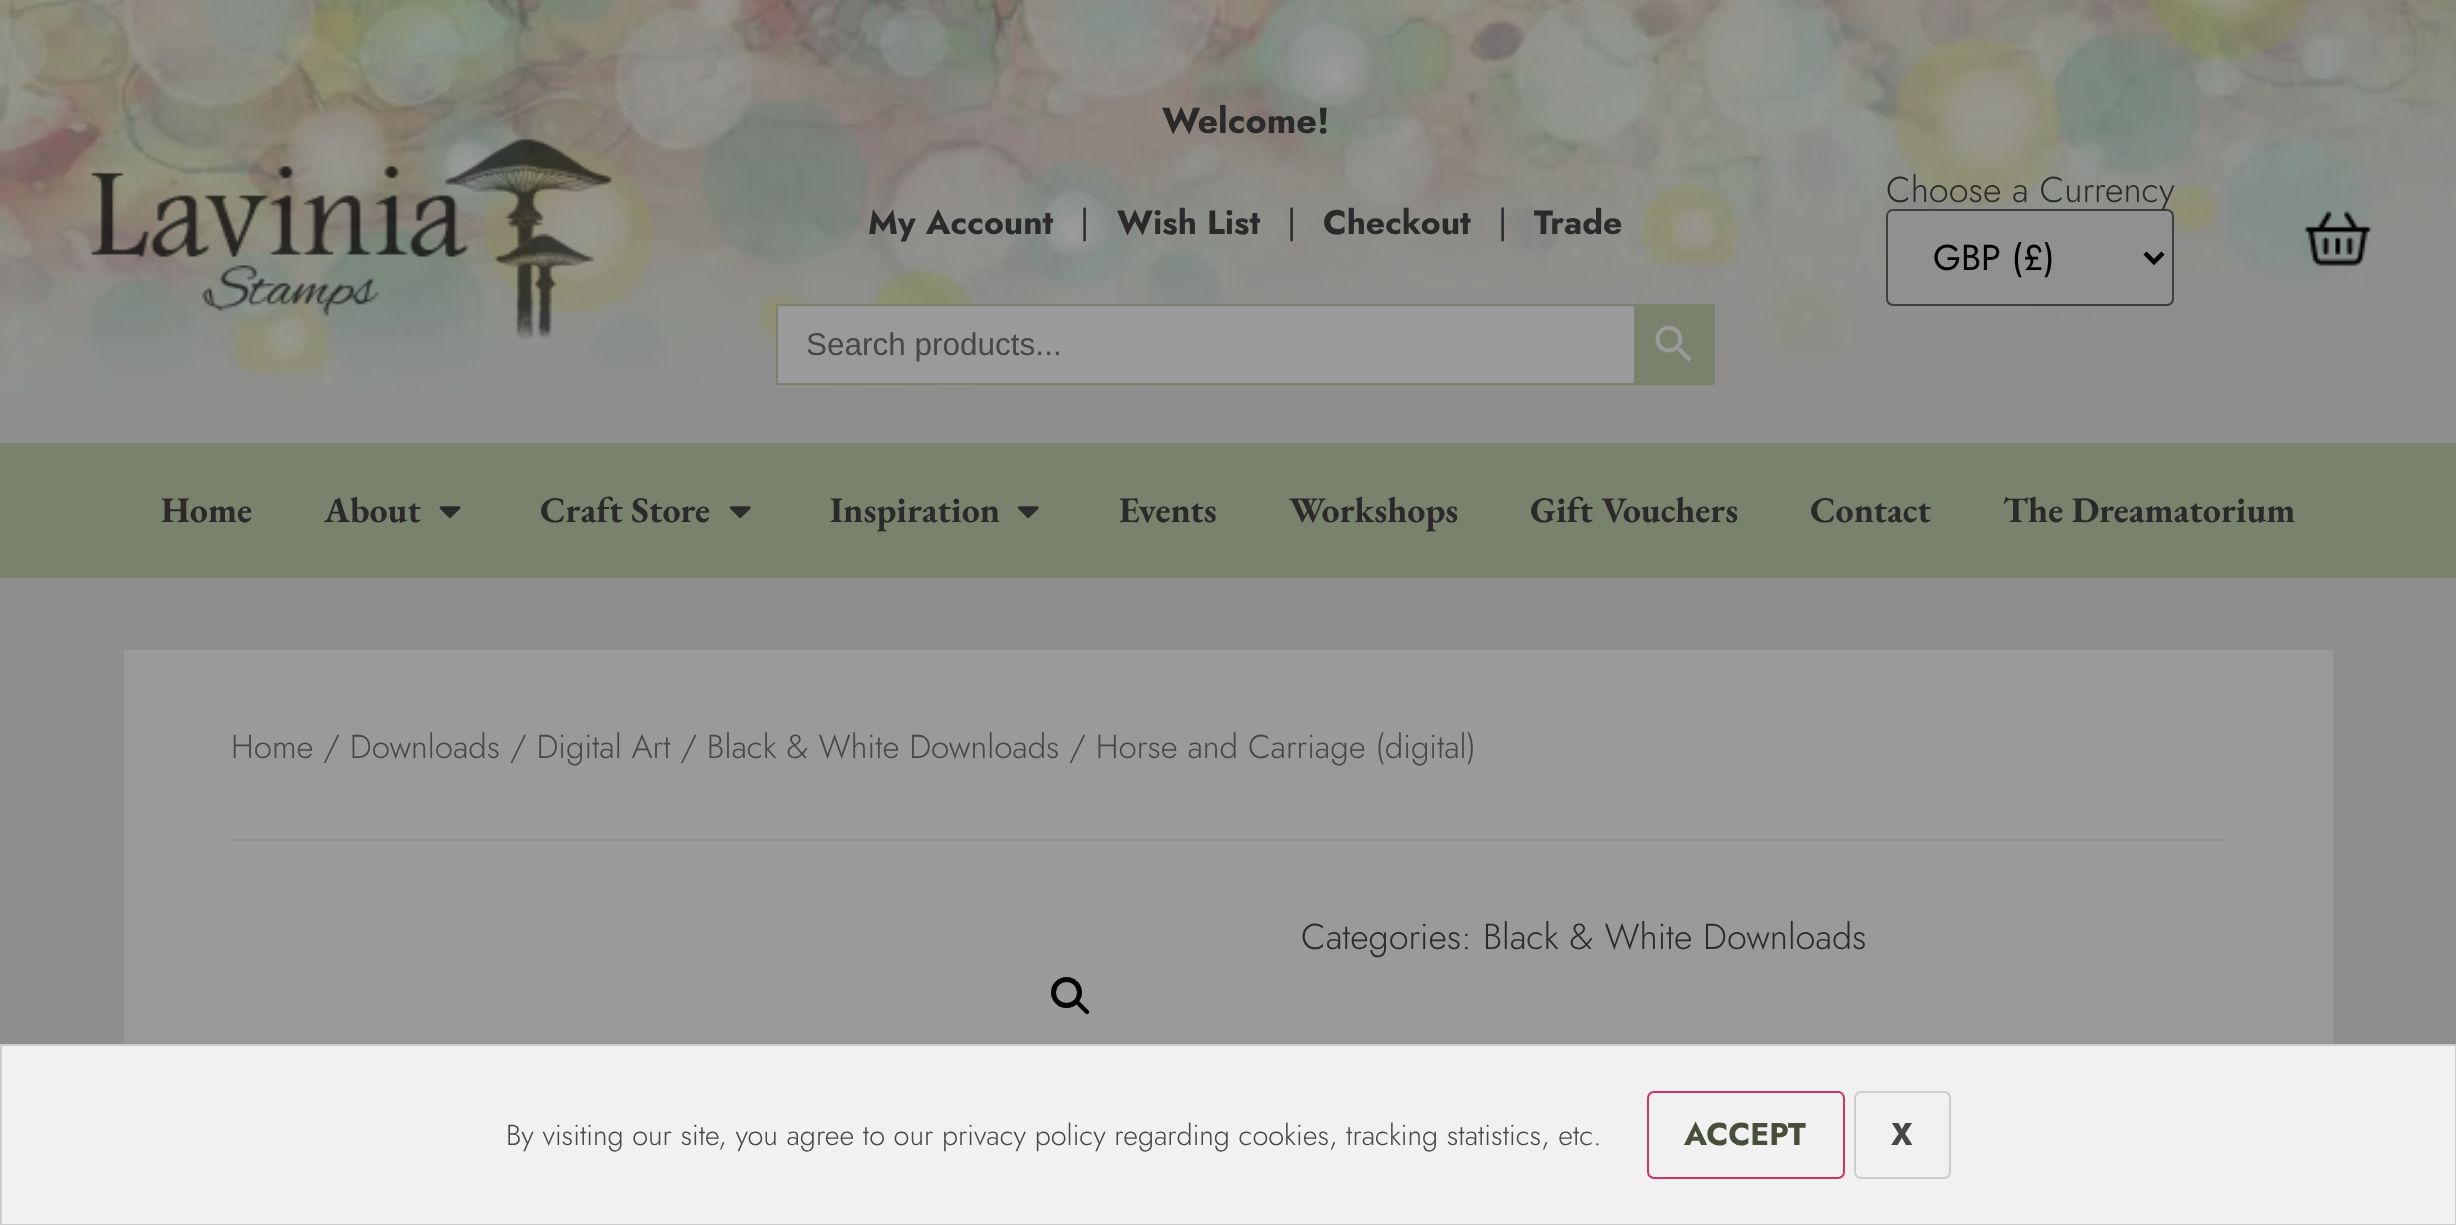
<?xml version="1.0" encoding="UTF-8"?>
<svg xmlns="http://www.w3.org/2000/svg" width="2456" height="1225">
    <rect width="100%" height="100%" fill="#8E8E8D"/>
    <image x="0" y="0" width="2456" height="396" href="img_01.png"/>
    <image x="89" y="139" width="524" height="201" href="img_02.png"/>
    <text x="1162" y="133" font-family="Jost" font-size="36" font-weight="700" fill="#2A2A2A">Welcome!</text>
    <text x="868" y="234" font-family="Jost" font-size="33.75" font-weight="700" fill="#2A2A2A">My Account</text>
    <text x="1080" y="234" font-family="Jost" font-size="33.75" fill="#2A2A2A">|</text>
    <text x="1117" y="234" font-family="Jost" font-size="33.75" font-weight="700" fill="#2A2A2A">Wish List</text>
    <text x="1287" y="234" font-family="Jost" font-size="33.75" fill="#2A2A2A">|</text>
    <text x="1323" y="234" font-family="Jost" font-size="33.75" font-weight="700" fill="#2A2A2A">Checkout</text>
    <text x="1498" y="234" font-family="Jost" font-size="33.75" fill="#2A2A2A">|</text>
    <text x="1534" y="234" font-family="Jost" font-size="33.75" font-weight="700" fill="#2A2A2A">Trade</text>
    <rect x="778" y="306" width="856" height="77" fill="#9A9A9A"/>
    <rect x="776" y="304" width="858" height="2" fill="#79826C"/>
    <rect x="776" y="383" width="858" height="2" fill="#79826C"/>
    <rect x="776" y="304" width="2" height="81" fill="#79826C"/>
    <text x="806" y="355" font-family="Liberation Sans" font-size="31.5" fill="#474747">Search products...</text>
    <rect x="1634" y="304" width="81" height="81" fill="#79826C"/>
    <image x="1655" y="325" width="37" height="37" href="img_03.png"/>
    <rect x="1887" y="210" width="286" height="95" rx="6" fill="#909090" stroke="#3E3E3E" stroke-width="2"/>
    <text x="1886" y="202" font-family="Jost" font-size="36" font-weight="300" fill="#2A2A2A">Choose a Currency</text>
    <path d="M 2145 253 L 2154 262 L 2163 253" fill="none" stroke="#010101" stroke-width="4.5"/>
    <text x="1933" y="270" font-family="Jost" font-size="36" fill="#010101">GBP (£)</text>
    <image x="2303" y="211" width="69" height="56" href="img_04.png"/>
    <rect x="0" y="443" width="2456" height="135" fill="#79826C"/>
    <text x="161" y="522" font-family="EB Garamond" font-size="36" font-weight="700" fill="#2A2A2A">Home</text>
    <text x="324" y="522" font-family="EB Garamond" font-size="36" font-weight="700" fill="#2A2A2A">About</text>
    <image x="439" y="506" width="22" height="13" href="img_05.png"/>
    <text x="540" y="522" font-family="EB Garamond" font-size="36" font-weight="700" fill="#2A2A2A">Craft Store</text>
    <image x="729" y="506" width="22" height="13" href="img_06.png"/>
    <text x="830" y="522" font-family="EB Garamond" font-size="36" font-weight="700" fill="#2A2A2A">Inspiration</text>
    <image x="1017" y="506" width="22" height="13" href="img_06.png"/>
    <text x="1119" y="522" font-family="EB Garamond" font-size="36" font-weight="700" fill="#2A2A2A">Events</text>
    <text x="1289" y="522" font-family="EB Garamond" font-size="36" font-weight="700" fill="#2A2A2A">Workshops</text>
    <text x="1530" y="522" font-family="EB Garamond" font-size="36" font-weight="700" fill="#2A2A2A">Gift Vouchers</text>
    <text x="1810" y="522" font-family="EB Garamond" font-size="36" font-weight="700" fill="#2A2A2A">Contact</text>
    <text x="2003" y="522" font-family="EB Garamond" font-size="36" font-weight="700" fill="#2A2A2A">The Dreamatorium</text>
    <rect x="124" y="650" width="2209" height="394" fill="#9A9A9A"/>
    <text x="231" y="758" font-family="Jost" font-size="33.1" font-weight="300" fill="#474747">Home / Downloads / Digital Art / Black &amp; White Downloads / Horse and Carriage (digital)</text>
    <rect x="232" y="839" width="1993" height="2" fill="#8E8E8D"/>
    <image x="770" y="938" width="9" height="3" href="img_07.png"/>
    <circle cx="1066.5" cy="992.5" r="13" fill="none" stroke="#010101" stroke-width="5"/>
    <path d="M 1076 1001 C 1077 1000 1078.5 1000 1079 1001 L 1088.5 1010.5 C 1089.5 1011.5 1089.5 1013 1088.5 1013.5 C 1088 1014.5 1086.5 1014.5 1085.5 1013.5 L 1076 1004 C 1075 1003 1075 1002 1076 1001 Z" fill="#010101"/>
    <text x="1301" y="949" font-family="Jost" font-size="36" font-weight="300" fill="#2A2A2A">Categories: Black &amp; White Downloads</text>
    <rect x="1" y="1045" width="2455" height="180" fill="#F1F1F1" stroke="#CCCCCC" stroke-width="2"/>
    <text x="506" y="1145" font-family="Jost" font-size="28.8" font-weight="300" fill="#474747">By visiting our site, you agree to our privacy policy regarding cookies, tracking statistics, etc.</text>
    <rect x="1648" y="1092" width="196" height="86" rx="6" fill="none" stroke="#CC3366" stroke-width="2"/>
    <text x="1684" y="1145" font-family="Jost" font-size="31.5" font-weight="700" fill="#474F3A">ACCEPT</text>
    <rect x="1855" y="1092" width="95" height="86" rx="6" fill="none" stroke="#CCCCCC" stroke-width="2"/>
    <text x="1891" y="1145" font-family="Jost" font-size="31.5" font-weight="700" fill="#474747">X</text>
</svg>
